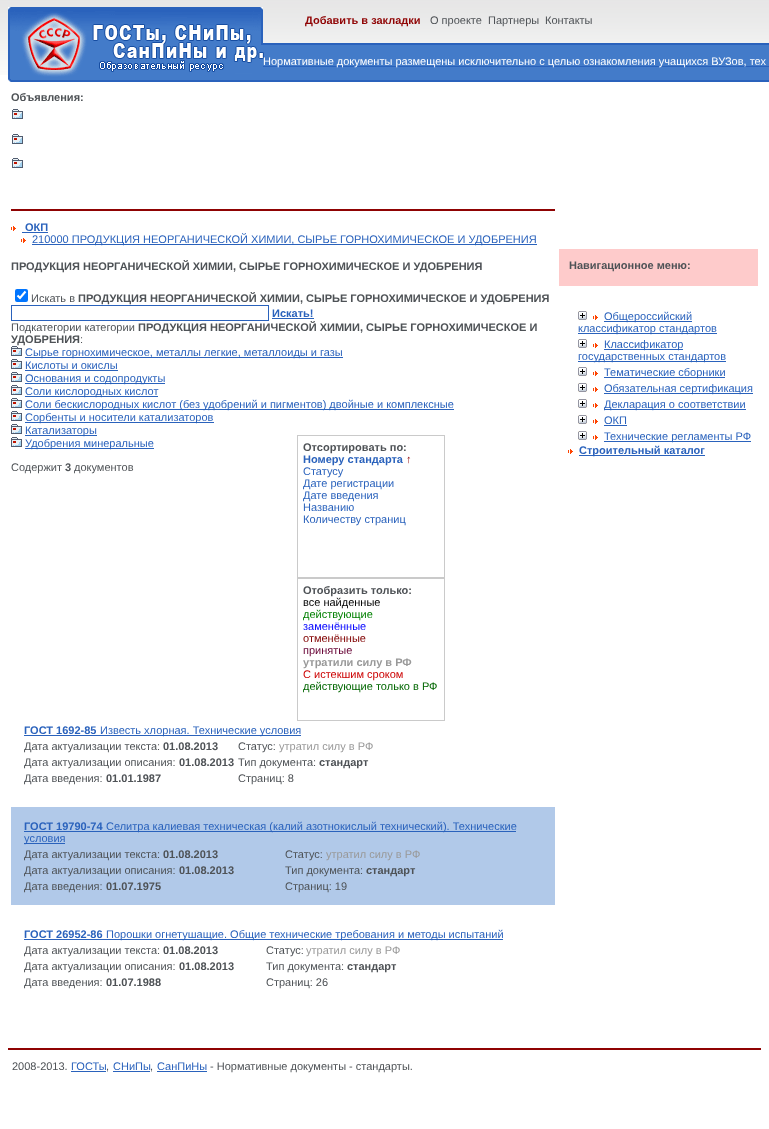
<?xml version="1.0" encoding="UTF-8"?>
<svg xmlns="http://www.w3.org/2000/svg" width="769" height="1129">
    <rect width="100%" height="100%" fill="#FFFFFF"/>
    <image x="0" y="0" width="769" height="75" href="img_01.png"/>
    <image x="8" y="7" width="761" height="75" href="img_02.png"/>
    <text x="305" y="24" font-family="Liberation Sans" font-size="11" font-weight="700" fill="#8F0303">Добавить в закладки</text>
    <text x="430" y="24" font-family="Liberation Sans" font-size="11" fill="#4E5256">О проекте</text>
    <text x="488" y="24" font-family="Liberation Sans" font-size="11" fill="#4E5256">Партнеры</text>
    <text x="545" y="24" font-family="Liberation Sans" font-size="11" fill="#4E5256">Контакты</text>
    <rect x="263" y="66" width="506" height="1" fill="#2A62BC"/>
    <text x="263" y="65" font-family="Liberation Sans" font-size="11" fill="#FFFFFF">Нормативные документы размещены исключительно с целью ознакомления учащихся ВУЗов, тех</text>
    <text x="11" y="101" font-family="Liberation Sans" font-size="11" font-weight="700" fill="#4E5256">Объявления:</text>
    <image x="12" y="109" width="11" height="59" href="img_03.png"/>
    <rect x="11" y="209" width="544" height="2" fill="#8F0303"/>
    <image x="11" y="226" width="5" height="5" href="img_04.png"/>
    <text x="25" y="231" font-family="Liberation Sans" font-size="11" font-weight="700" fill="#2A62BC">ОКП</text>
    <rect x="22" y="232" width="26" height="1" fill="#2A62BC"/>
    <image x="21" y="238" width="5" height="5" href="img_04.png"/>
    <rect x="32" y="244" width="505" height="1" fill="#2A62BC"/>
    <text x="32" y="243" font-family="Liberation Sans" font-size="11" fill="#2A62BC">210000 ПРОДУКЦИЯ НЕОРГАНИЧЕСКОЙ ХИМИИ, СЫРЬЕ ГОРНОХИМИЧЕСКОЕ И УДОБРЕНИЯ</text>
    <text x="11" y="270" font-family="Liberation Sans" font-size="11" font-weight="700" fill="#4E5256">ПРОДУКЦИЯ НЕОРГАНИЧЕСКОЙ ХИМИИ, СЫРЬЕ ГОРНОХИМИЧЕСКОЕ И УДОБРЕНИЯ</text>
    <rect x="15" y="289" width="13" height="13" rx="2" fill="#0075FF"/>
    <path d="M 17.5 295.5 L 20 298 L 25.5 291.5" fill="none" stroke="#FFFFFF" stroke-width="2.1"/>
    <text x="31" y="302" font-family="Liberation Sans" font-size="11" fill="#4E5256">Искать в</text>
    <text x="78" y="302" font-family="Liberation Sans" font-size="11" font-weight="700" fill="#4E5256">ПРОДУКЦИЯ НЕОРГАНИЧЕСКОЙ ХИМИИ, СЫРЬЕ ГОРНОХИМИЧЕСКОЕ И УДОБРЕНИЯ</text>
    <rect x="11.5" y="305.5" width="257" height="15" fill="none" stroke="#2A62BC"/>
    <text x="272" y="317" font-family="Liberation Sans" font-size="11" font-weight="700" fill="#2A62BC">Искать!</text>
    <rect x="272" y="318" width="42" height="1" fill="#2A62BC"/>
    <text x="11" y="331" font-family="Liberation Sans" font-size="11" fill="#4E5256">Подкатегории категории</text>
    <text x="138" y="331" font-family="Liberation Sans" font-size="11" font-weight="700" fill="#4E5256">ПРОДУКЦИЯ НЕОРГАНИЧЕСКОЙ ХИМИИ, СЫРЬЕ ГОРНОХИМИЧЕСКОЕ И</text>
    <text x="11" y="343" font-family="Liberation Sans" font-size="11" font-weight="700" fill="#4E5256">УДОБРЕНИЯ</text>
    <text x="80" y="343" font-family="Liberation Sans" font-size="11" fill="#4E5256">:</text>
    <image x="11" y="346" width="11" height="10" href="img_05.png"/>
    <rect x="25" y="357" width="318" height="1" fill="#2A62BC"/>
    <text x="25" y="356" font-family="Liberation Sans" font-size="11" fill="#2A62BC">Сырье горнохимическое, металлы легкие, металлоиды и газы</text>
    <image x="11" y="359" width="11" height="10" href="img_05.png"/>
    <text x="25" y="369" font-family="Liberation Sans" font-size="11" fill="#2A62BC">Кислоты и окислы</text>
    <rect x="25" y="370" width="93" height="1" fill="#2A62BC"/>
    <image x="11" y="372" width="11" height="10" href="img_05.png"/>
    <rect x="25" y="383" width="140" height="1" fill="#2A62BC"/>
    <text x="25" y="382" font-family="Liberation Sans" font-size="11" fill="#2A62BC">Основания и содопродукты</text>
    <image x="11" y="385" width="11" height="10" href="img_05.png"/>
    <rect x="25" y="396" width="133" height="1" fill="#2A62BC"/>
    <text x="25" y="395" font-family="Liberation Sans" font-size="11" fill="#2A62BC">Соли кислородных кислот</text>
    <image x="11" y="398" width="11" height="10" href="img_05.png"/>
    <rect x="25" y="409" width="429" height="1" fill="#2A62BC"/>
    <text x="25" y="408" font-family="Liberation Sans" font-size="11" fill="#2A62BC">Соли бескислородных кислот (без удобрений и пигментов) двойные и комплексные</text>
    <image x="11" y="411" width="11" height="10" href="img_05.png"/>
    <rect x="25" y="422" width="189" height="1" fill="#2A62BC"/>
    <text x="25" y="421" font-family="Liberation Sans" font-size="11" fill="#2A62BC">Сорбенты и носители катализаторов</text>
    <image x="11" y="424" width="11" height="10" href="img_05.png"/>
    <rect x="25" y="435" width="72" height="1" fill="#2A62BC"/>
    <text x="25" y="434" font-family="Liberation Sans" font-size="11" fill="#2A62BC">Катализаторы</text>
    <image x="11" y="437" width="11" height="10" href="img_05.png"/>
    <rect x="25" y="448" width="129" height="1" fill="#2A62BC"/>
    <text x="25" y="447" font-family="Liberation Sans" font-size="11" fill="#2A62BC">Удобрения минеральные</text>
    <rect x="297.5" y="435.5" width="147" height="142" fill="none" stroke="#CACACA"/>
    <text x="303" y="451" font-family="Liberation Sans" font-size="11" font-weight="700" fill="#4E5256">Отсортировать по:</text>
    <text x="303" y="463" font-family="Liberation Sans" font-size="11" font-weight="700" fill="#2A62BC">Номеру стандарта</text>
    <text x="406" y="463" font-family="Liberation Sans" font-size="11" fill="#8F0303">↑</text>
    <text font-family="Liberation Sans" font-size="11" fill="#2A62BC">
        <tspan x="303" y="475">Статусу</tspan>
        <tspan x="303" y="487">Дате регистрации</tspan>
        <tspan x="303" y="499">Дате введения</tspan>
        <tspan x="303" y="511">Названию</tspan>
        <tspan x="303" y="523">Количеству страниц</tspan>
    </text>
    <rect x="297.5" y="578.5" width="147" height="142" fill="none" stroke="#CACACA"/>
    <text x="303" y="594" font-family="Liberation Sans" font-size="11" font-weight="700" fill="#4E5256">Отобразить только:</text>
    <text x="303" y="606" font-family="Liberation Sans" font-size="11" fill="#000000">все найденные</text>
    <text x="303" y="618" font-family="Liberation Sans" font-size="11" fill="#008000">действующие</text>
    <text x="303" y="630" font-family="Liberation Sans" font-size="11" fill="#0000FF">заменённые</text>
    <text x="303" y="642" font-family="Liberation Sans" font-size="11" fill="#800000">отменённые</text>
    <text x="303" y="654" font-family="Liberation Sans" font-size="11" fill="#660033">принятые</text>
    <text x="303" y="666" font-family="Liberation Sans" font-size="11" font-weight="700" fill="#999999">утратили силу в РФ</text>
    <text x="303" y="678" font-family="Liberation Sans" font-size="11" fill="#CC0000">С истекшим сроком</text>
    <text x="303" y="690" font-family="Liberation Sans" font-size="11" fill="#006600">действующие только в РФ</text>
    <text x="11" y="471" font-family="Liberation Sans" font-size="11" fill="#4E5256">Содержит</text>
    <text x="65" y="471" font-family="Liberation Sans" font-size="11" font-weight="700" fill="#4E5256">3</text>
    <text x="74" y="471" font-family="Liberation Sans" font-size="11" fill="#4E5256">документов</text>
    <text x="24" y="734" font-family="Liberation Sans" font-size="11" font-weight="700" fill="#2A62BC">ГОСТ 1692-85</text>
    <rect x="24" y="735" width="277" height="1" fill="#2A62BC"/>
    <text x="100" y="734" font-family="Liberation Sans" font-size="11" fill="#2A62BC">Известь хлорная. Технические условия</text>
    <text x="24" y="750" font-family="Liberation Sans" font-size="11" fill="#4E5256">Дата актуализации текста:</text>
    <text x="163" y="750" font-family="Liberation Sans" font-size="11" font-weight="700" fill="#4E5256">01.08.2013</text>
    <text x="238" y="750" font-family="Liberation Sans" font-size="11" fill="#4E5256">Статус:</text>
    <text x="279" y="750" font-family="Liberation Sans" font-size="11" fill="#999999">утратил силу в РФ</text>
    <text x="24" y="766" font-family="Liberation Sans" font-size="11" fill="#4E5256">Дата актуализации описания:</text>
    <text x="179" y="766" font-family="Liberation Sans" font-size="11" font-weight="700" fill="#4E5256">01.08.2013</text>
    <text x="238" y="766" font-family="Liberation Sans" font-size="11" fill="#4E5256">Тип документа:</text>
    <text x="319" y="766" font-family="Liberation Sans" font-size="11" font-weight="700" fill="#4E5256">стандарт</text>
    <text x="24" y="782" font-family="Liberation Sans" font-size="11" fill="#4E5256">Дата введения:</text>
    <text x="106" y="782" font-family="Liberation Sans" font-size="11" font-weight="700" fill="#4E5256">01.01.1987</text>
    <text x="238" y="782" font-family="Liberation Sans" font-size="11" fill="#4E5256">Страниц: 8</text>
    <rect x="11" y="807" width="544" height="98" fill="#B1C9E9"/>
    <text x="24" y="830" font-family="Liberation Sans" font-size="11" font-weight="700" fill="#2A62BC">ГОСТ 19790-74</text>
    <rect x="24" y="831" width="492" height="1" fill="#2A62BC"/>
    <text x="106" y="830" font-family="Liberation Sans" font-size="11" fill="#2A62BC">Селитра калиевая техническая (калий азотнокислый технический). Технические</text>
    <rect x="24" y="843" width="41" height="1" fill="#2A62BC"/>
    <text x="24" y="842" font-family="Liberation Sans" font-size="11" fill="#2A62BC">условия</text>
    <text x="24" y="858" font-family="Liberation Sans" font-size="11" fill="#4E5256">Дата актуализации текста:</text>
    <text x="163" y="858" font-family="Liberation Sans" font-size="11" font-weight="700" fill="#4E5256">01.08.2013</text>
    <text x="285" y="858" font-family="Liberation Sans" font-size="11" fill="#4E5256">Статус:</text>
    <text x="326" y="858" font-family="Liberation Sans" font-size="11" fill="#999999">утратил силу в РФ</text>
    <text x="24" y="874" font-family="Liberation Sans" font-size="11" fill="#4E5256">Дата актуализации описания:</text>
    <text x="179" y="874" font-family="Liberation Sans" font-size="11" font-weight="700" fill="#4E5256">01.08.2013</text>
    <text x="285" y="874" font-family="Liberation Sans" font-size="11" fill="#4E5256">Тип документа:</text>
    <text x="366" y="874" font-family="Liberation Sans" font-size="11" font-weight="700" fill="#4E5256">стандарт</text>
    <text x="24" y="890" font-family="Liberation Sans" font-size="11" fill="#4E5256">Дата введения:</text>
    <text x="106" y="890" font-family="Liberation Sans" font-size="11" font-weight="700" fill="#4E5256">01.07.1975</text>
    <text x="285" y="890" font-family="Liberation Sans" font-size="11" fill="#4E5256">Страниц: 19</text>
    <text x="24" y="938" font-family="Liberation Sans" font-size="11" font-weight="700" fill="#2A62BC">ГОСТ 26952-86</text>
    <rect x="24" y="939" width="479" height="1" fill="#2A62BC"/>
    <text x="106" y="938" font-family="Liberation Sans" font-size="11" fill="#2A62BC">Порошки огнетушащие. Общие технические требования и методы испытаний</text>
    <text x="24" y="954" font-family="Liberation Sans" font-size="11" fill="#4E5256">Дата актуализации текста:</text>
    <text x="163" y="954" font-family="Liberation Sans" font-size="11" font-weight="700" fill="#4E5256">01.08.2013</text>
    <text x="266" y="954" font-family="Liberation Sans" font-size="11" fill="#4E5256">Статус:</text>
    <text x="306" y="954" font-family="Liberation Sans" font-size="11" fill="#999999">утратил силу в РФ</text>
    <text x="24" y="970" font-family="Liberation Sans" font-size="11" fill="#4E5256">Дата актуализации описания:</text>
    <text x="179" y="970" font-family="Liberation Sans" font-size="11" font-weight="700" fill="#4E5256">01.08.2013</text>
    <text x="266" y="970" font-family="Liberation Sans" font-size="11" fill="#4E5256">Тип документа:</text>
    <text x="347" y="970" font-family="Liberation Sans" font-size="11" font-weight="700" fill="#4E5256">стандарт</text>
    <text x="24" y="986" font-family="Liberation Sans" font-size="11" fill="#4E5256">Дата введения:</text>
    <text x="106" y="986" font-family="Liberation Sans" font-size="11" font-weight="700" fill="#4E5256">01.07.1988</text>
    <text x="266" y="986" font-family="Liberation Sans" font-size="11" fill="#4E5256">Страниц: 26</text>
    <rect x="559" y="249" width="199" height="37" fill="#FECBCB"/>
    <text x="569" y="269" font-family="Liberation Sans" font-size="11" font-weight="700" fill="#4E5256">Навигационное меню:</text>
    <image x="578" y="311" width="9" height="9" href="img_06.png"/>
    <image x="593" y="315" width="5" height="5" href="img_04.png"/>
    <rect x="604" y="321" width="88" height="1" fill="#2A62BC"/>
    <text x="604" y="320" font-family="Liberation Sans" font-size="11" fill="#2A62BC">Общероссийский</text>
    <rect x="578" y="333" width="139" height="1" fill="#2A62BC"/>
    <text x="578" y="332" font-family="Liberation Sans" font-size="11" fill="#2A62BC">классификатор стандартов</text>
    <image x="578" y="339" width="9" height="9" href="img_06.png"/>
    <image x="593" y="343" width="5" height="5" href="img_04.png"/>
    <rect x="604" y="349" width="79" height="1" fill="#2A62BC"/>
    <text x="604" y="348" font-family="Liberation Sans" font-size="11" fill="#2A62BC">Классификатор</text>
    <rect x="578" y="361" width="148" height="1" fill="#2A62BC"/>
    <text x="578" y="360" font-family="Liberation Sans" font-size="11" fill="#2A62BC">государственных стандартов</text>
    <image x="578" y="367" width="9" height="9" href="img_06.png"/>
    <image x="593" y="371" width="5" height="5" href="img_04.png"/>
    <rect x="604" y="377" width="121" height="1" fill="#2A62BC"/>
    <text x="604" y="376" font-family="Liberation Sans" font-size="11" fill="#2A62BC">Тематические сборники</text>
    <image x="578" y="383" width="9" height="9" href="img_06.png"/>
    <image x="593" y="387" width="5" height="5" href="img_04.png"/>
    <rect x="604" y="393" width="149" height="1" fill="#2A62BC"/>
    <text x="604" y="392" font-family="Liberation Sans" font-size="11" fill="#2A62BC">Обязательная сертификация</text>
    <image x="578" y="399" width="9" height="9" href="img_06.png"/>
    <image x="593" y="403" width="5" height="5" href="img_04.png"/>
    <rect x="604" y="409" width="142" height="1" fill="#2A62BC"/>
    <text x="604" y="408" font-family="Liberation Sans" font-size="11" fill="#2A62BC">Декларация о соответствии</text>
    <image x="578" y="415" width="9" height="9" href="img_06.png"/>
    <image x="593" y="419" width="5" height="5" href="img_04.png"/>
    <text x="604" y="424" font-family="Liberation Sans" font-size="11" fill="#2A62BC">ОКП</text>
    <rect x="604" y="425" width="23" height="1" fill="#2A62BC"/>
    <image x="578" y="431" width="9" height="9" href="img_06.png"/>
    <image x="593" y="435" width="5" height="5" href="img_04.png"/>
    <rect x="604" y="441" width="147" height="1" fill="#2A62BC"/>
    <text x="604" y="440" font-family="Liberation Sans" font-size="11" fill="#2A62BC">Технические регламенты РФ</text>
    <image x="568" y="449" width="5" height="5" href="img_04.png"/>
    <rect x="579" y="455" width="126" height="1" fill="#2A62BC"/>
    <text x="579" y="454" font-family="Liberation Sans" font-size="11" font-weight="700" fill="#2A62BC">Строительный каталог</text>
    <rect x="8" y="1048" width="753" height="2" fill="#8F0303"/>
    <text x="12" y="1070" font-family="Liberation Sans" font-size="11" fill="#4E5256">2008-2013.</text>
    <text x="71" y="1070" font-family="Liberation Sans" font-size="11" fill="#2A62BC">ГОСТы</text>
    <rect x="71" y="1071" width="35" height="1" fill="#2A62BC"/>
    <text x="106" y="1070" font-family="Liberation Sans" font-size="11" fill="#4E5256">,</text>
    <text x="113" y="1070" font-family="Liberation Sans" font-size="11" fill="#2A62BC">СНиПы</text>
    <rect x="113" y="1071" width="37" height="1" fill="#2A62BC"/>
    <text x="150" y="1070" font-family="Liberation Sans" font-size="11" fill="#4E5256">,</text>
    <text x="157" y="1070" font-family="Liberation Sans" font-size="11" fill="#2A62BC">СанПиНы</text>
    <rect x="157" y="1071" width="50" height="1" fill="#2A62BC"/>
    <text x="210" y="1070" font-family="Liberation Sans" font-size="11" fill="#4E5256">- Нормативные документы - стандарты.</text>
</svg>
